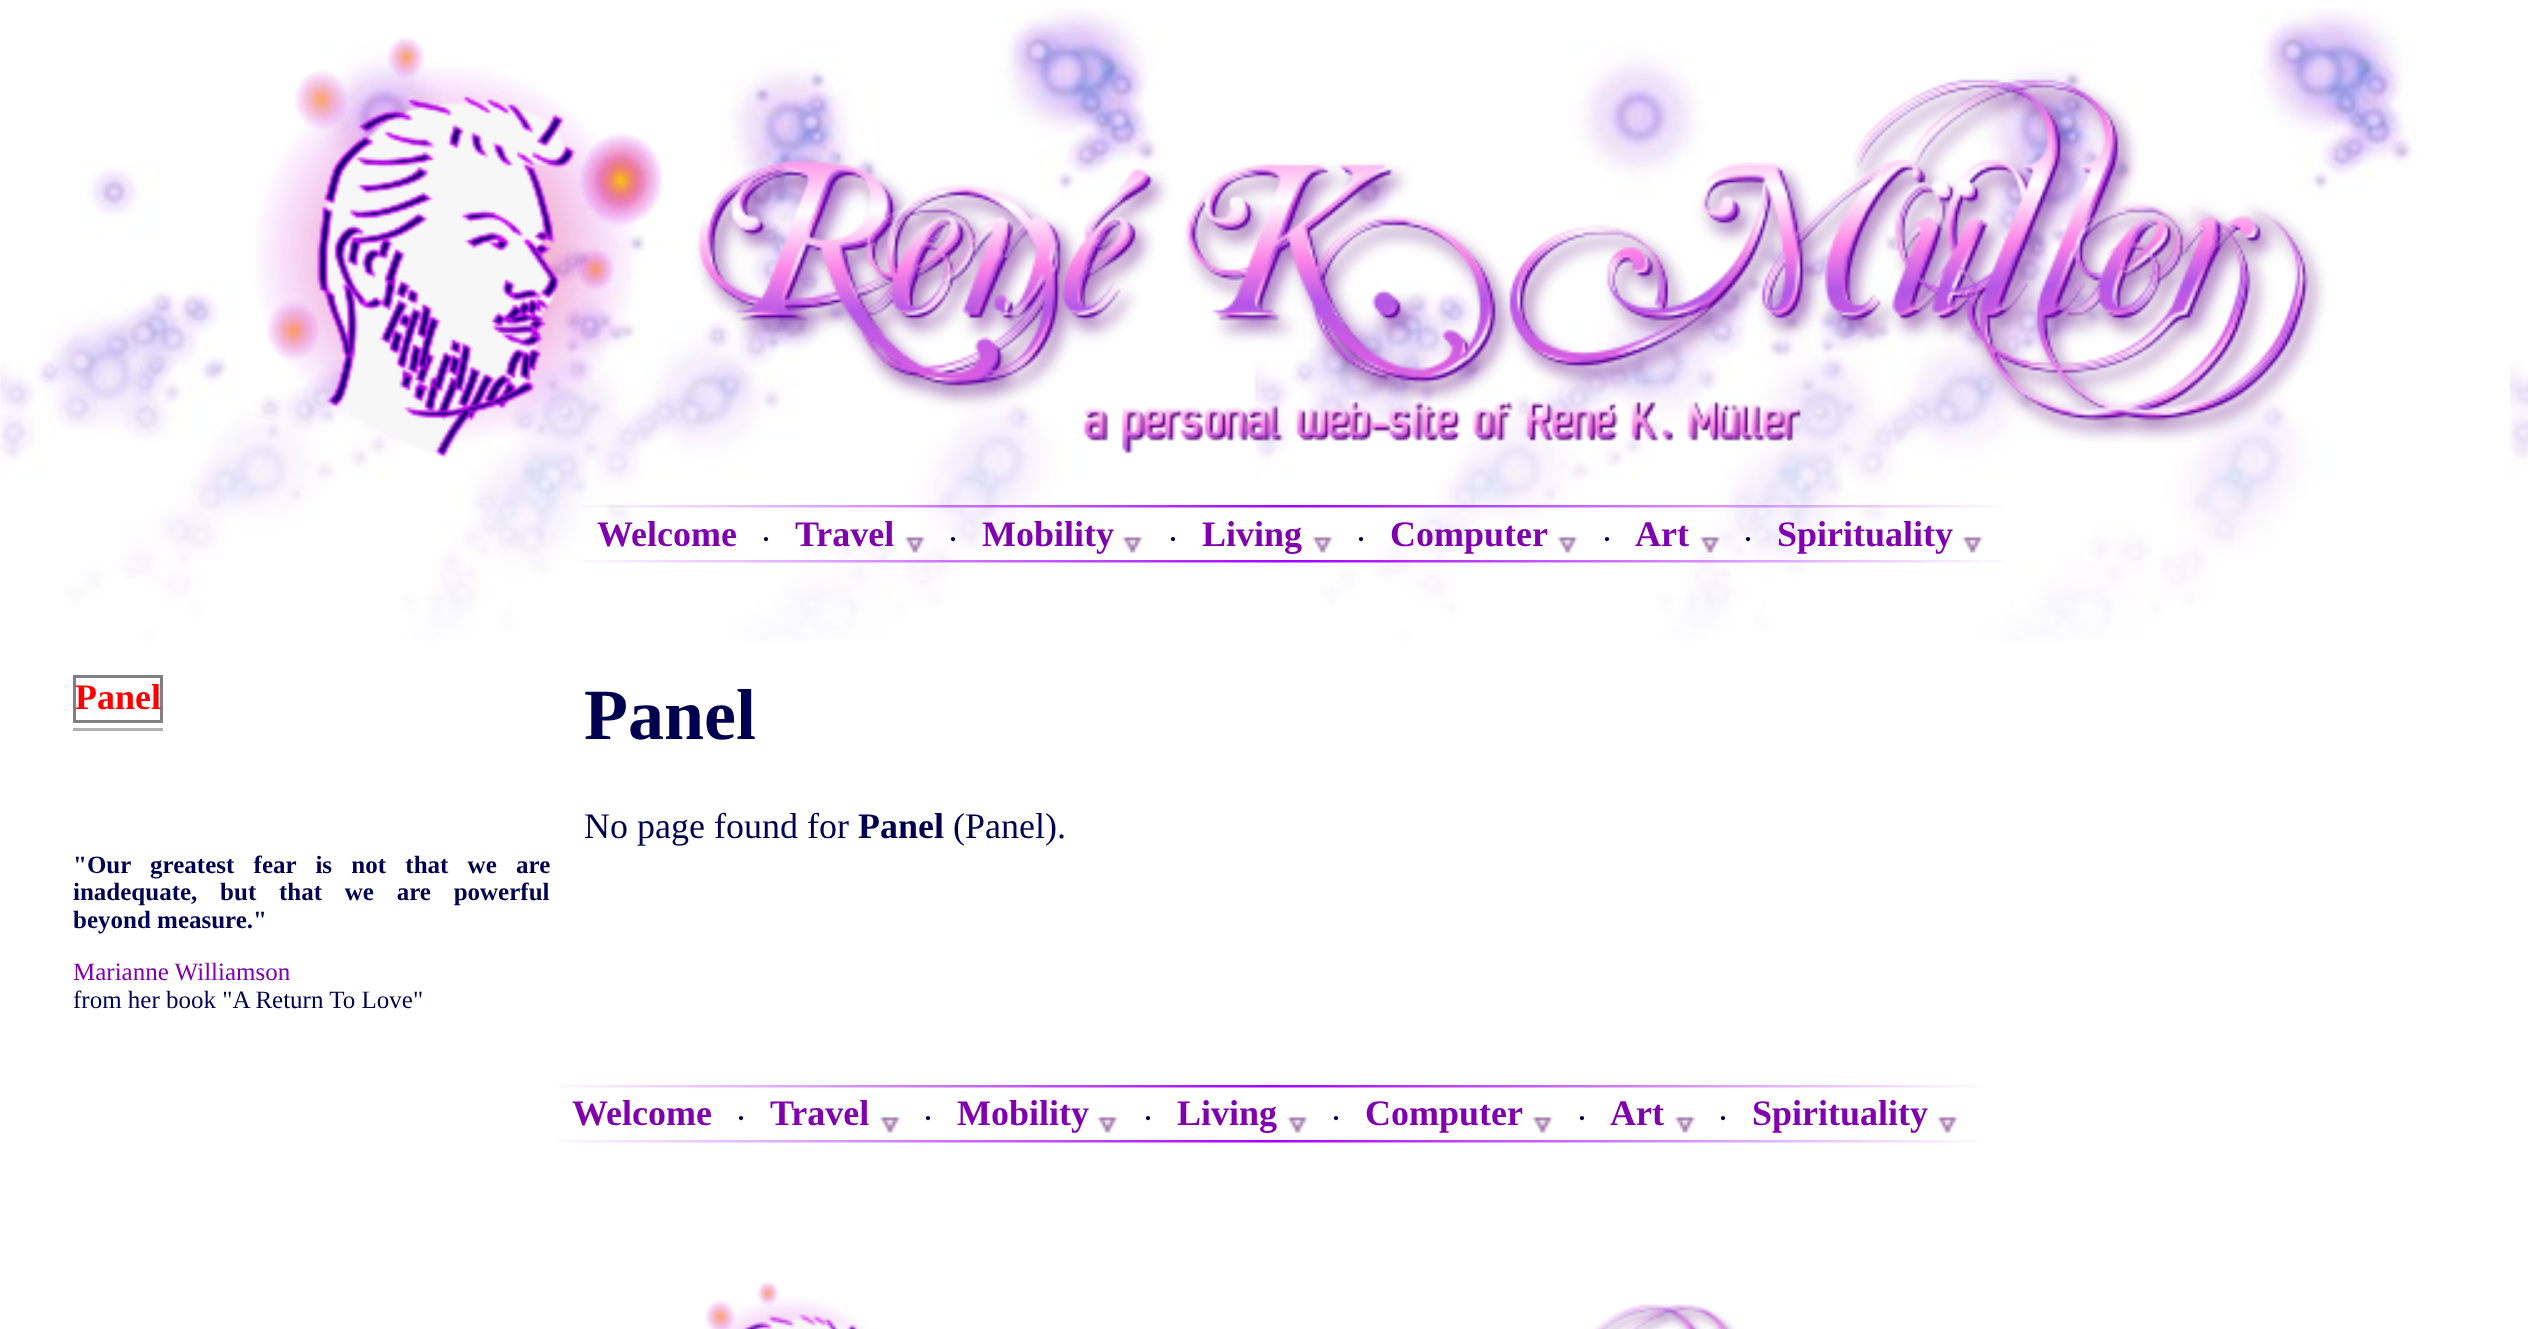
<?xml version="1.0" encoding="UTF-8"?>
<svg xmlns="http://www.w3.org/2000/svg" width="2528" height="1329">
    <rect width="100%" height="100%" fill="#FFFFFF"/>
    <image x="0" y="8" width="2528" height="633" href="img_01.png"/>
    <image x="255" y="37" width="2071" height="422" href="img_02.png"/>
    <image x="581" y="505" width="1422" height="3" href="img_03.png"/>
    <text x="597" y="546" font-family="Liberation Serif" font-size="36" font-weight="700" fill="#8000AF">Welcome</text>
    <text x="760" y="551" font-family="Liberation Serif" font-size="36" fill="#000050">·</text>
    <text x="795" y="546" font-family="Liberation Serif" font-size="36" font-weight="700" fill="#8000AF">Travel</text>
    <image x="905" y="536" width="20" height="17" href="img_04.png"/>
    <text x="947" y="551" font-family="Liberation Serif" font-size="36" fill="#000050">·</text>
    <text x="982" y="546" font-family="Liberation Serif" font-size="36" font-weight="700" fill="#8000AF">Mobility</text>
    <image x="1122" y="536" width="21" height="17" href="img_05.png"/>
    <text x="1167" y="551" font-family="Liberation Serif" font-size="36" fill="#000050">·</text>
    <text x="1202" y="546" font-family="Liberation Serif" font-size="36" font-weight="700" fill="#8000AF">Living</text>
    <image x="1312" y="536" width="21" height="17" href="img_05.png"/>
    <text x="1355" y="551" font-family="Liberation Serif" font-size="36" fill="#000050">·</text>
    <text x="1390" y="546" font-family="Liberation Serif" font-size="36" font-weight="700" fill="#8000AF">Computer</text>
    <image x="1557" y="536" width="21" height="17" href="img_05.png"/>
    <text x="1601" y="551" font-family="Liberation Serif" font-size="36" fill="#000050">·</text>
    <text x="1635" y="546" font-family="Liberation Serif" font-size="36" font-weight="700" fill="#8000AF">Art</text>
    <image x="1700" y="536" width="20" height="17" href="img_06.png"/>
    <text x="1742" y="551" font-family="Liberation Serif" font-size="36" fill="#000050">·</text>
    <text x="1777" y="546" font-family="Liberation Serif" font-size="36" font-weight="700" fill="#8000AF">Spirituality</text>
    <image x="1962" y="536" width="21" height="17" href="img_07.png"/>
    <image x="581" y="560" width="1422" height="3" href="img_08.png"/>
    <rect x="74.5" y="676.5" width="87" height="45" fill="none" stroke="#808080" stroke-width="3"/>
    <text x="75" y="709" font-family="Liberation Serif" font-size="36" font-weight="700" fill="#FF0000">Panel</text>
    <rect x="73" y="728" width="90" height="3" fill="#B0B0B0"/>
    <text font-family="Liberation Serif" font-size="25" font-weight="700" fill="#000050">
        <tspan x="73" y="873" word-spacing="13">"Our greatest fear is not that we are</tspan>
        <tspan x="73" y="900" word-spacing="16.5">inadequate, but that we are powerful</tspan>
        <tspan x="73" y="928">beyond measure."</tspan>
    </text>
    <text x="73" y="980" font-family="Liberation Serif" font-size="25" fill="#8000AF">Marianne Williamson</text>
    <text x="73" y="1008" font-family="Liberation Serif" font-size="25" fill="#000050">from her book "A Return To Love"</text>
    <text x="584" y="739" font-family="Liberation Serif" font-size="72" font-weight="700" fill="#000050">Panel</text>
    <text x="584" y="838" font-family="Liberation Serif" font-size="36" fill="#000050">No page found for</text>
    <text x="858" y="838" font-family="Liberation Serif" font-size="36" font-weight="700" fill="#000050">Panel</text>
    <text x="953" y="838" font-family="Liberation Serif" font-size="36" fill="#000050">(Panel).</text>
    <image x="556" y="1085" width="1422" height="3" href="img_09.png"/>
    <text x="572" y="1125" font-family="Liberation Serif" font-size="36" font-weight="700" fill="#8000AF">Welcome</text>
    <text x="735" y="1130" font-family="Liberation Serif" font-size="36" fill="#000050">·</text>
    <text x="770" y="1125" font-family="Liberation Serif" font-size="36" font-weight="700" fill="#8000AF">Travel</text>
    <image x="880" y="1116" width="20" height="17" href="img_10.png"/>
    <text x="922" y="1130" font-family="Liberation Serif" font-size="36" fill="#000050">·</text>
    <text x="957" y="1125" font-family="Liberation Serif" font-size="36" font-weight="700" fill="#8000AF">Mobility</text>
    <image x="1097" y="1116" width="21" height="17" href="img_05.png"/>
    <text x="1142" y="1130" font-family="Liberation Serif" font-size="36" fill="#000050">·</text>
    <text x="1177" y="1125" font-family="Liberation Serif" font-size="36" font-weight="700" fill="#8000AF">Living</text>
    <image x="1287" y="1116" width="21" height="17" href="img_07.png"/>
    <text x="1330" y="1130" font-family="Liberation Serif" font-size="36" fill="#000050">·</text>
    <text x="1365" y="1125" font-family="Liberation Serif" font-size="36" font-weight="700" fill="#8000AF">Computer</text>
    <image x="1532" y="1116" width="21" height="17" href="img_05.png"/>
    <text x="1576" y="1130" font-family="Liberation Serif" font-size="36" fill="#000050">·</text>
    <text x="1610" y="1125" font-family="Liberation Serif" font-size="36" font-weight="700" fill="#8000AF">Art</text>
    <image x="1675" y="1116" width="20" height="17" href="img_10.png"/>
    <text x="1717" y="1130" font-family="Liberation Serif" font-size="36" fill="#000050">·</text>
    <text x="1752" y="1125" font-family="Liberation Serif" font-size="36" font-weight="700" fill="#8000AF">Spirituality</text>
    <image x="1937" y="1116" width="21" height="17" href="img_07.png"/>
    <image x="556" y="1140" width="1422" height="3" href="img_09.png"/>
    <image x="705" y="1281" width="1030" height="48" href="img_11.png"/>
</svg>
